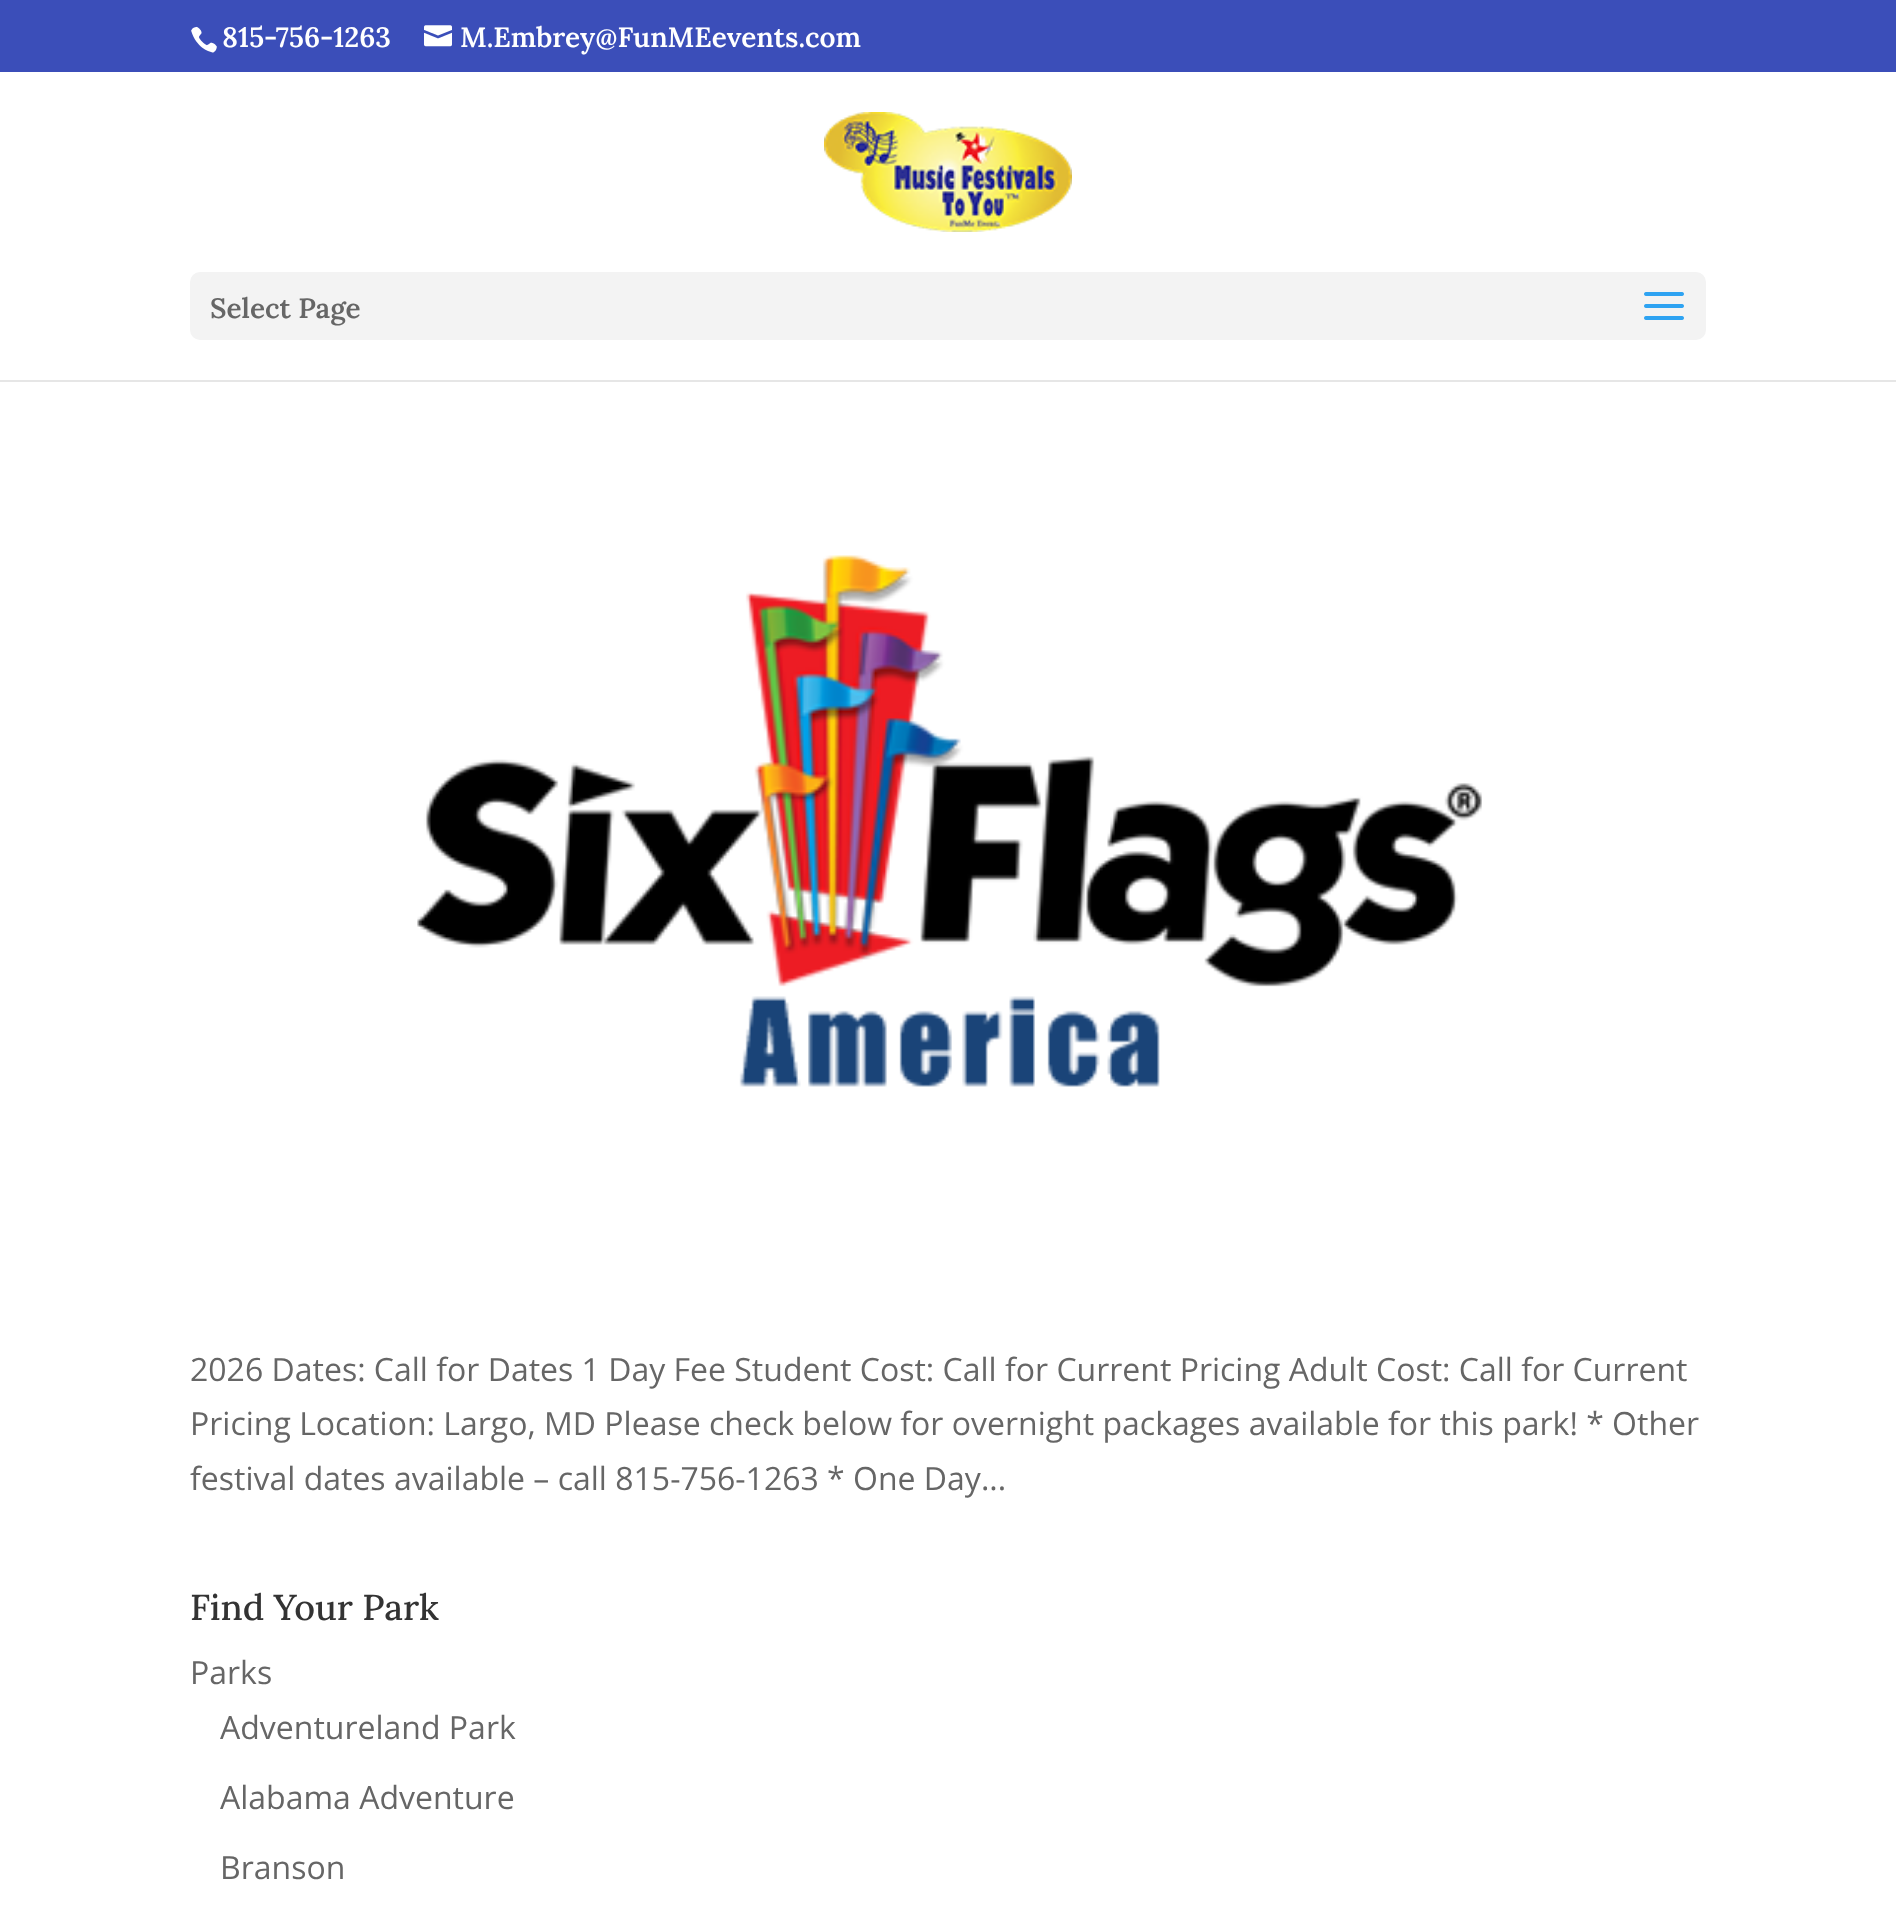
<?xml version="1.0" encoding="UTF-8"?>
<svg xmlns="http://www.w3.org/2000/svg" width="1896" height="1914">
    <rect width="100%" height="100%" fill="#FFFFFF"/>
    <rect x="0" y="0" width="1896" height="72" fill="#3B4EB9"/>
    <image x="191" y="26" width="26" height="27" href="img_01.png"/>
    <text x="222" y="47" font-family="Lora" font-size="28" font-weight="600" fill="#FFFFFF">815-756-1263</text>
    <image x="424" y="25" width="28" height="22" href="img_02.png"/>
    <text x="460" y="47" font-family="Lora" font-size="28" font-weight="600" fill="#FFFFFF">M.Embrey@FunMEevents.com</text>
    <rect x="0" y="380" width="1896" height="2" fill="#E6E6E6"/>
    <image x="824" y="112" width="248" height="120" href="img_03.png"/>
    <rect x="190" y="272" width="1516" height="68" rx="10" fill="#F3F3F3"/>
    <text x="210" y="318" font-family="Lora" font-size="28" font-weight="600" fill="#666666">Select Page</text>
    <image x="1644" y="292" width="40" height="28" href="img_04.png"/>
    <image x="417" y="555" width="1065" height="532" href="img_05.png"/>
    <text font-family="Open Sans" font-size="32" fill="#666666">
        <tspan x="190" y="1381">2026 Dates: Call for Dates 1 Day Fee Student Cost: Call for Current Pricing Adult Cost: Call for Current</tspan>
        <tspan x="190" y="1435">Pricing Location: Largo, MD Please check below for overnight packages available for this park! * Other</tspan>
        <tspan x="190" y="1490">festival dates available – call 815-756-1263 * One Day...</tspan>
    </text>
    <text x="190" y="1620" font-family="Lora" font-size="36" font-weight="500" fill="#333333">Find Your Park</text>
    <text x="190" y="1684" font-family="Open Sans" font-size="32" fill="#666666">Parks</text>
    <text x="220" y="1739" font-family="Open Sans" font-size="32" fill="#666666">Adventureland Park</text>
    <text x="220" y="1809" font-family="Open Sans" font-size="32" fill="#666666">Alabama Adventure</text>
    <text x="220" y="1879" font-family="Open Sans" font-size="32" fill="#666666">Branson</text>
</svg>
